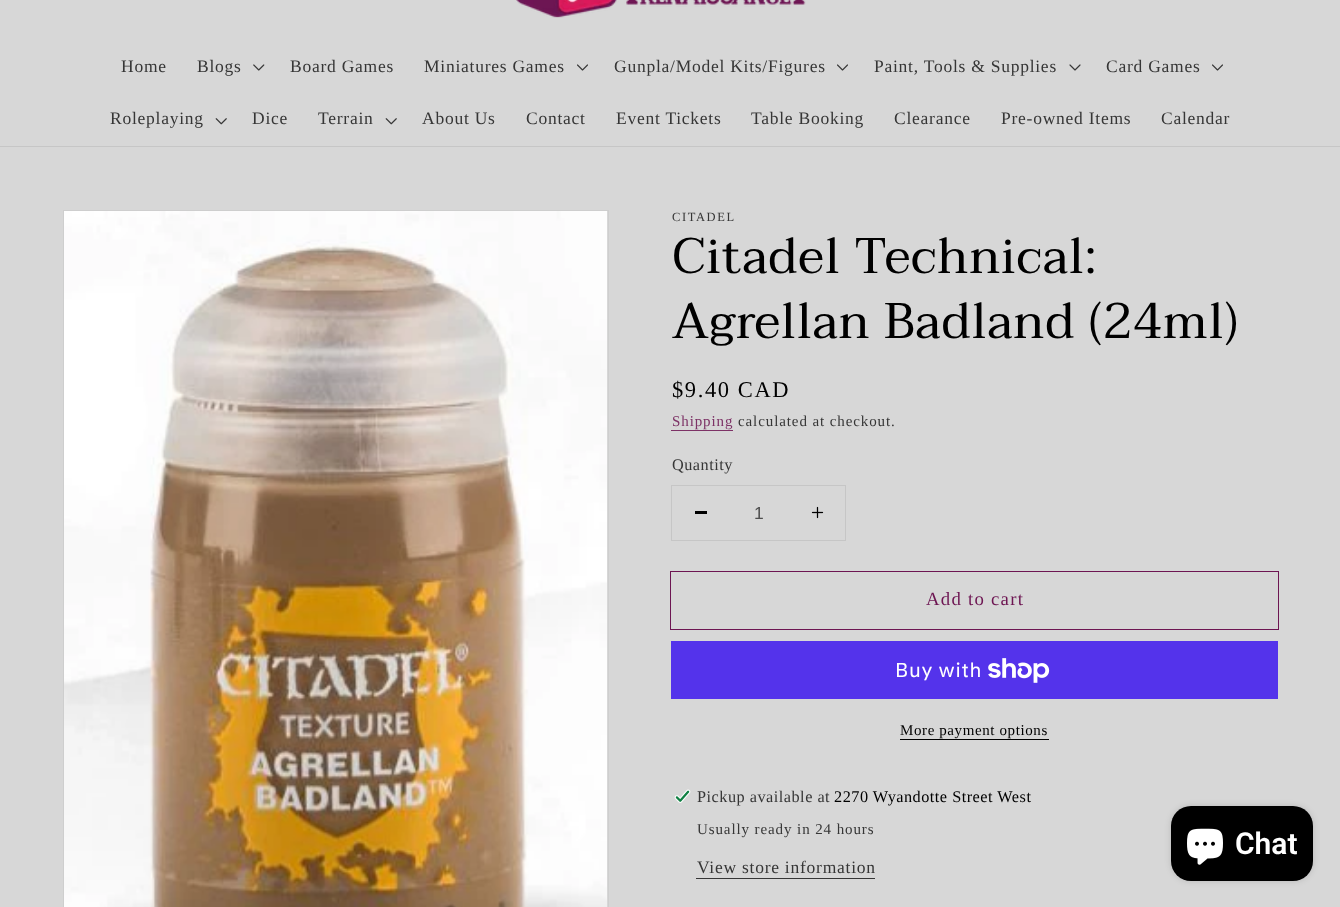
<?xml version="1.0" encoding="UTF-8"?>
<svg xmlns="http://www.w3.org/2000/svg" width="1340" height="907">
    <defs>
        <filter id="blur1" x="-50%" y="-200%" width="200%" height="500%"><feGaussianBlur stdDeviation="3"/></filter>
    </defs>
    <rect width="100%" height="100%" fill="#D7D7D7"/>
    <rect x="0" y="146" width="1340" height="1" fill="#C6C6C6"/>
    <image x="516" y="0" width="290" height="18" href="img_01.png"/>
    <text x="121" y="72" font-family="Liberation Serif" font-size="17.5" letter-spacing="0.75" fill="#363636">Home</text>
    <text x="197" y="72" font-family="Liberation Serif" font-size="17.5" letter-spacing="0.75" fill="#363636">Blogs</text>
    <image x="253" y="64" width="12" height="7" href="img_02.png"/>
    <text x="290" y="72" font-family="Liberation Serif" font-size="17.5" letter-spacing="0.75" fill="#363636">Board Games</text>
    <text x="424" y="72" font-family="Liberation Serif" font-size="17.5" letter-spacing="0.75" fill="#363636">Miniatures Games</text>
    <image x="577" y="64" width="11" height="7" href="img_03.png"/>
    <text x="614" y="72" font-family="Liberation Serif" font-size="17.5" letter-spacing="0.75" fill="#363636">Gunpla/Model Kits/Figures</text>
    <image x="837" y="64" width="11" height="7" href="img_03.png"/>
    <text x="874" y="72" font-family="Liberation Serif" font-size="17.5" letter-spacing="0.75" fill="#363636">Paint, Tools &amp; Supplies</text>
    <image x="1069" y="64" width="12" height="7" href="img_04.png"/>
    <text x="1106" y="72" font-family="Liberation Serif" font-size="17.5" letter-spacing="0.75" fill="#363636">Card Games</text>
    <image x="1212" y="64" width="11" height="7" href="img_03.png"/>
    <text x="110" y="124" font-family="Liberation Serif" font-size="17.5" letter-spacing="0.75" fill="#363636">Roleplaying</text>
    <image x="215" y="118" width="12" height="7" href="img_05.png"/>
    <text x="252" y="124" font-family="Liberation Serif" font-size="17.5" letter-spacing="0.75" fill="#363636">Dice</text>
    <text x="318" y="124" font-family="Liberation Serif" font-size="17.5" letter-spacing="0.75" fill="#363636">Terrain</text>
    <image x="385" y="118" width="12" height="7" href="img_05.png"/>
    <text x="422" y="124" font-family="Liberation Serif" font-size="17.5" letter-spacing="0.75" fill="#363636">About Us</text>
    <text x="526" y="124" font-family="Liberation Serif" font-size="17.5" letter-spacing="0.75" fill="#363636">Contact</text>
    <text x="616" y="124" font-family="Liberation Serif" font-size="17.5" letter-spacing="0.75" fill="#363636">Event Tickets</text>
    <text x="751" y="124" font-family="Liberation Serif" font-size="17.5" letter-spacing="0.75" fill="#363636">Table Booking</text>
    <text x="894" y="124" font-family="Liberation Serif" font-size="17.5" letter-spacing="0.75" fill="#363636">Clearance</text>
    <text x="1001" y="124" font-family="Liberation Serif" font-size="17.5" letter-spacing="0.75" fill="#363636">Pre-owned Items</text>
    <text x="1161" y="124" font-family="Liberation Serif" font-size="17.5" letter-spacing="0.75" fill="#363636">Calendar</text>
    <rect x="63.5" y="210.5" width="545" height="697" fill="none" stroke="#CECECE"/>
    <image x="64" y="211" width="543" height="696" href="img_06.png"/>
    <text x="672" y="221" font-family="Liberation Serif" font-size="12.5" letter-spacing="1.6" fill="#363636">CITADEL</text>
    <text font-family="Taviraj" font-size="50" letter-spacing="0.75" fill="#000000">
        <tspan x="672" y="273">Citadel Technical:</tspan>
        <tspan x="672" y="338">Agrellan Badland (24ml)</tspan>
    </text>
    <text x="672" y="397" font-family="Liberation Serif" font-size="22.5" letter-spacing="1.6" fill="#000000">$9.40 CAD</text>
    <text x="672" y="426" font-family="Liberation Serif" font-size="15" letter-spacing="0.9" fill="#7D3266">Shipping</text>
    <rect x="671" y="430" width="62" height="1" fill="#7D3266"/>
    <text x="738" y="426" font-family="Liberation Serif" font-size="15" letter-spacing="0.9" fill="#363636">calculated at checkout.</text>
    <text x="672" y="470" font-family="Liberation Serif" font-size="16.25" letter-spacing="0.5" fill="#363636">Quantity</text>
    <rect x="671.5" y="485.5" width="174" height="55" fill="none" stroke="#C6C6C6"/>
    <rect x="695" y="511" width="12" height="3" fill="#000000"/>
    <text x="754" y="519" font-family="Liberation Sans" font-size="17.5" fill="#4E4E4E">1</text>
    <image x="811" y="506" width="13" height="13" href="img_07.png"/>
    <rect x="670.5" y="571.5" width="608" height="58" fill="none" stroke="#6D1552"/>
    <text x="926" y="605" font-family="Liberation Serif" font-size="18.75" letter-spacing="1.25" fill="#6D1552">Add to cart</text>
    <rect x="671" y="641" width="607" height="58" fill="#5433EB"/>
    <text x="895" y="677" font-family="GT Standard" font-size="20" letter-spacing="0.75" fill="#FFFFFF">Buy with</text>
    <image x="988" y="658" width="62" height="25" href="img_08.png"/>
    <text x="900" y="735" font-family="Liberation Serif" font-size="15" letter-spacing="0.6" fill="#000000">More payment options</text>
    <rect x="900" y="739" width="149" height="1" fill="#000000"/>
    <image x="674" y="789" width="17" height="14" href="img_09.png"/>
    <text x="697" y="802" font-family="Liberation Serif" font-size="16.25" letter-spacing="0.5" fill="#363636">Pickup available at</text>
    <text x="834" y="802" font-family="Liberation Serif" font-size="16.25" letter-spacing="0.5" fill="#000000">2270 Wyandotte Street West</text>
    <text x="697" y="834" font-family="Liberation Serif" font-size="15" letter-spacing="0.9" fill="#363636">Usually ready in 24 hours</text>
    <text x="697" y="873" font-family="Liberation Serif" font-size="17.5" letter-spacing="0.75" fill="#363636">View store information</text>
    <rect x="696" y="878" width="179" height="1" fill="#363636"/>
    <rect x="1171" y="806" width="142" height="75" rx="20" fill="#000000" fill-opacity="0.15" filter="url(#blur1)"/>
    <rect x="1171" y="806" width="142" height="75" rx="20" fill="#000000"/>
    <image x="1187" y="828" width="36" height="37" href="img_10.png"/>
    <text x="1235" y="854" font-family="Roboto" font-size="30" font-weight="600" fill="#FFFFFF">Chat</text>
</svg>
